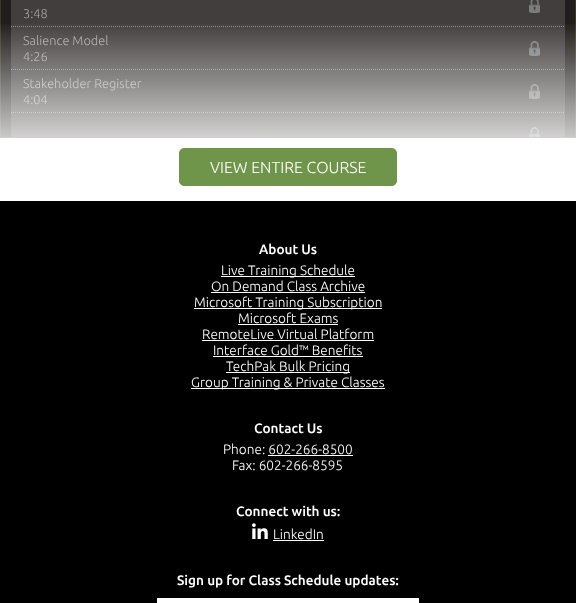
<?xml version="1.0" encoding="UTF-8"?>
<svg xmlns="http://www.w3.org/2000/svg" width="576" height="603">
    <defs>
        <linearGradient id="g1" gradientUnits="userSpaceOnUse" x1="288" y1="21" x2="288" y2="201"><stop offset="0" stop-color="#FFFFFF" stop-opacity="0"/><stop offset="0.5" stop-color="#FFFFFF" stop-opacity="0.59"/><stop offset="0.85" stop-color="#FFFFFF"/></linearGradient>
    </defs>
    <rect width="100%" height="100%" fill="#201D1C"/>
    <rect x="0.5" y="-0.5" width="575" height="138" fill="none" stroke="#3E382A"/>
    <rect x="11" y="0" width="554" height="137" fill="#423E3D"/>
    <path d="M 11 26.5 H 565" fill="none" stroke="#888888" stroke-dasharray="1 1"/>
    <text x="23" y="18" font-family="Ubuntu" font-size="12.75" font-weight="300" fill="#A8A4A3">3:48</text>
    <image x="529" y="0" width="11" height="13" href="img_01.png"/>
    <path d="M 11 69.5 H 565" fill="none" stroke="#888888" stroke-dasharray="1 1"/>
    <text font-family="Ubuntu" font-size="12.75" font-weight="300" fill="#A8A4A3">
        <tspan x="23" y="45">Salience Model</tspan>
        <tspan x="23" y="61">4:26</tspan>
    </text>
    <image x="529" y="41" width="11" height="15" href="img_02.png"/>
    <path d="M 11 112.5 H 565" fill="none" stroke="#888888" stroke-dasharray="1 1"/>
    <text font-family="Ubuntu" font-size="12.75" font-weight="300" fill="#A8A4A3">
        <tspan x="23" y="88">Stakeholder Register</tspan>
        <tspan x="23" y="104">4:04</tspan>
    </text>
    <image x="529" y="84" width="11" height="15" href="img_02.png"/>
    <image x="529" y="127" width="11" height="10" href="img_03.png"/>
    <rect x="0" y="138" width="576" height="35" fill="#FFFFFF"/>
    <rect x="0" y="24" width="576" height="177" fill="url(#g1)"/>
    <rect x="179.5" y="148.5" width="217" height="37" rx="4.5" fill="#6F954A" stroke="#6F954A"/>
    <text x="210" y="173" font-family="Ubuntu" font-size="16" font-weight="300" fill="#FFFFFF">VIEW ENTIRE COURSE</text>
    <rect x="0" y="201" width="576" height="402" fill="#000000"/>
    <text x="259" y="254" font-family="Ubuntu" font-size="13.6" font-weight="500" fill="#FFFFFF">About Us</text>
    <rect x="221" y="276" width="134" height="1" fill="#FFFFFF"/>
    <text x="221" y="275" font-family="Ubuntu" font-size="13.6" font-weight="300" fill="#FFFFFF">Live Training Schedule</text>
    <text x="211" y="291" font-family="Ubuntu" font-size="13.6" font-weight="300" fill="#FFFFFF">On Demand Class Archive</text>
    <rect x="211" y="292" width="154" height="1" fill="#FFFFFF"/>
    <rect x="194" y="308" width="188" height="1" fill="#FFFFFF"/>
    <text x="194" y="307" font-family="Ubuntu" font-size="13.6" font-weight="300" fill="#FFFFFF">Microsoft Training Subscription</text>
    <text x="238" y="323" font-family="Ubuntu" font-size="13.6" font-weight="300" fill="#FFFFFF">Microsoft Exams</text>
    <rect x="238" y="324" width="100" height="1" fill="#FFFFFF"/>
    <text x="202" y="339" font-family="Ubuntu" font-size="13.6" font-weight="300" fill="#FFFFFF">RemoteLive Virtual Platform</text>
    <rect x="202" y="340" width="172" height="1" fill="#FFFFFF"/>
    <text x="213" y="355" font-family="Ubuntu" font-size="13.6" font-weight="300" fill="#FFFFFF">Interface Gold™ Benefits</text>
    <rect x="213" y="356" width="150" height="1" fill="#FFFFFF"/>
    <rect x="226" y="372" width="124" height="1" fill="#FFFFFF"/>
    <text x="226" y="371" font-family="Ubuntu" font-size="13.6" font-weight="300" fill="#FFFFFF">TechPak Bulk Pricing</text>
    <rect x="191" y="388" width="194" height="1" fill="#FFFFFF"/>
    <text x="191" y="387" font-family="Ubuntu" font-size="13.6" font-weight="300" fill="#FFFFFF">Group Training &amp; Private Classes</text>
    <text x="254" y="433" font-family="Ubuntu" font-size="13.6" font-weight="500" fill="#FFFFFF">Contact Us</text>
    <text x="223" y="454" font-family="Ubuntu" font-size="13.6" font-weight="300" fill="#FFFFFF">Phone: 602-266-8500</text>
    <rect x="268" y="455" width="85" height="1" fill="#FFFFFF"/>
    <text x="232" y="470" font-family="Ubuntu" font-size="13.6" font-weight="300" fill="#FFFFFF">Fax: 602-266-8595</text>
    <text x="236" y="516" font-family="Ubuntu" font-size="13.6" font-weight="500" fill="#FFFFFF">Connect with us:</text>
    <image x="252" y="523" width="16" height="16" href="img_04.png"/>
    <text x="273" y="539" font-family="Ubuntu" font-size="13.6" font-weight="300" fill="#FFFFFF">LinkedIn</text>
    <rect x="273" y="540" width="51" height="1" fill="#FFFFFF"/>
    <text x="177" y="585" font-family="Ubuntu" font-size="13.6" font-weight="500" fill="#FFFFFF">Sign up for Class Schedule updates:</text>
    <rect x="157" y="598" width="262" height="5" fill="#FFFFFF"/>
</svg>
